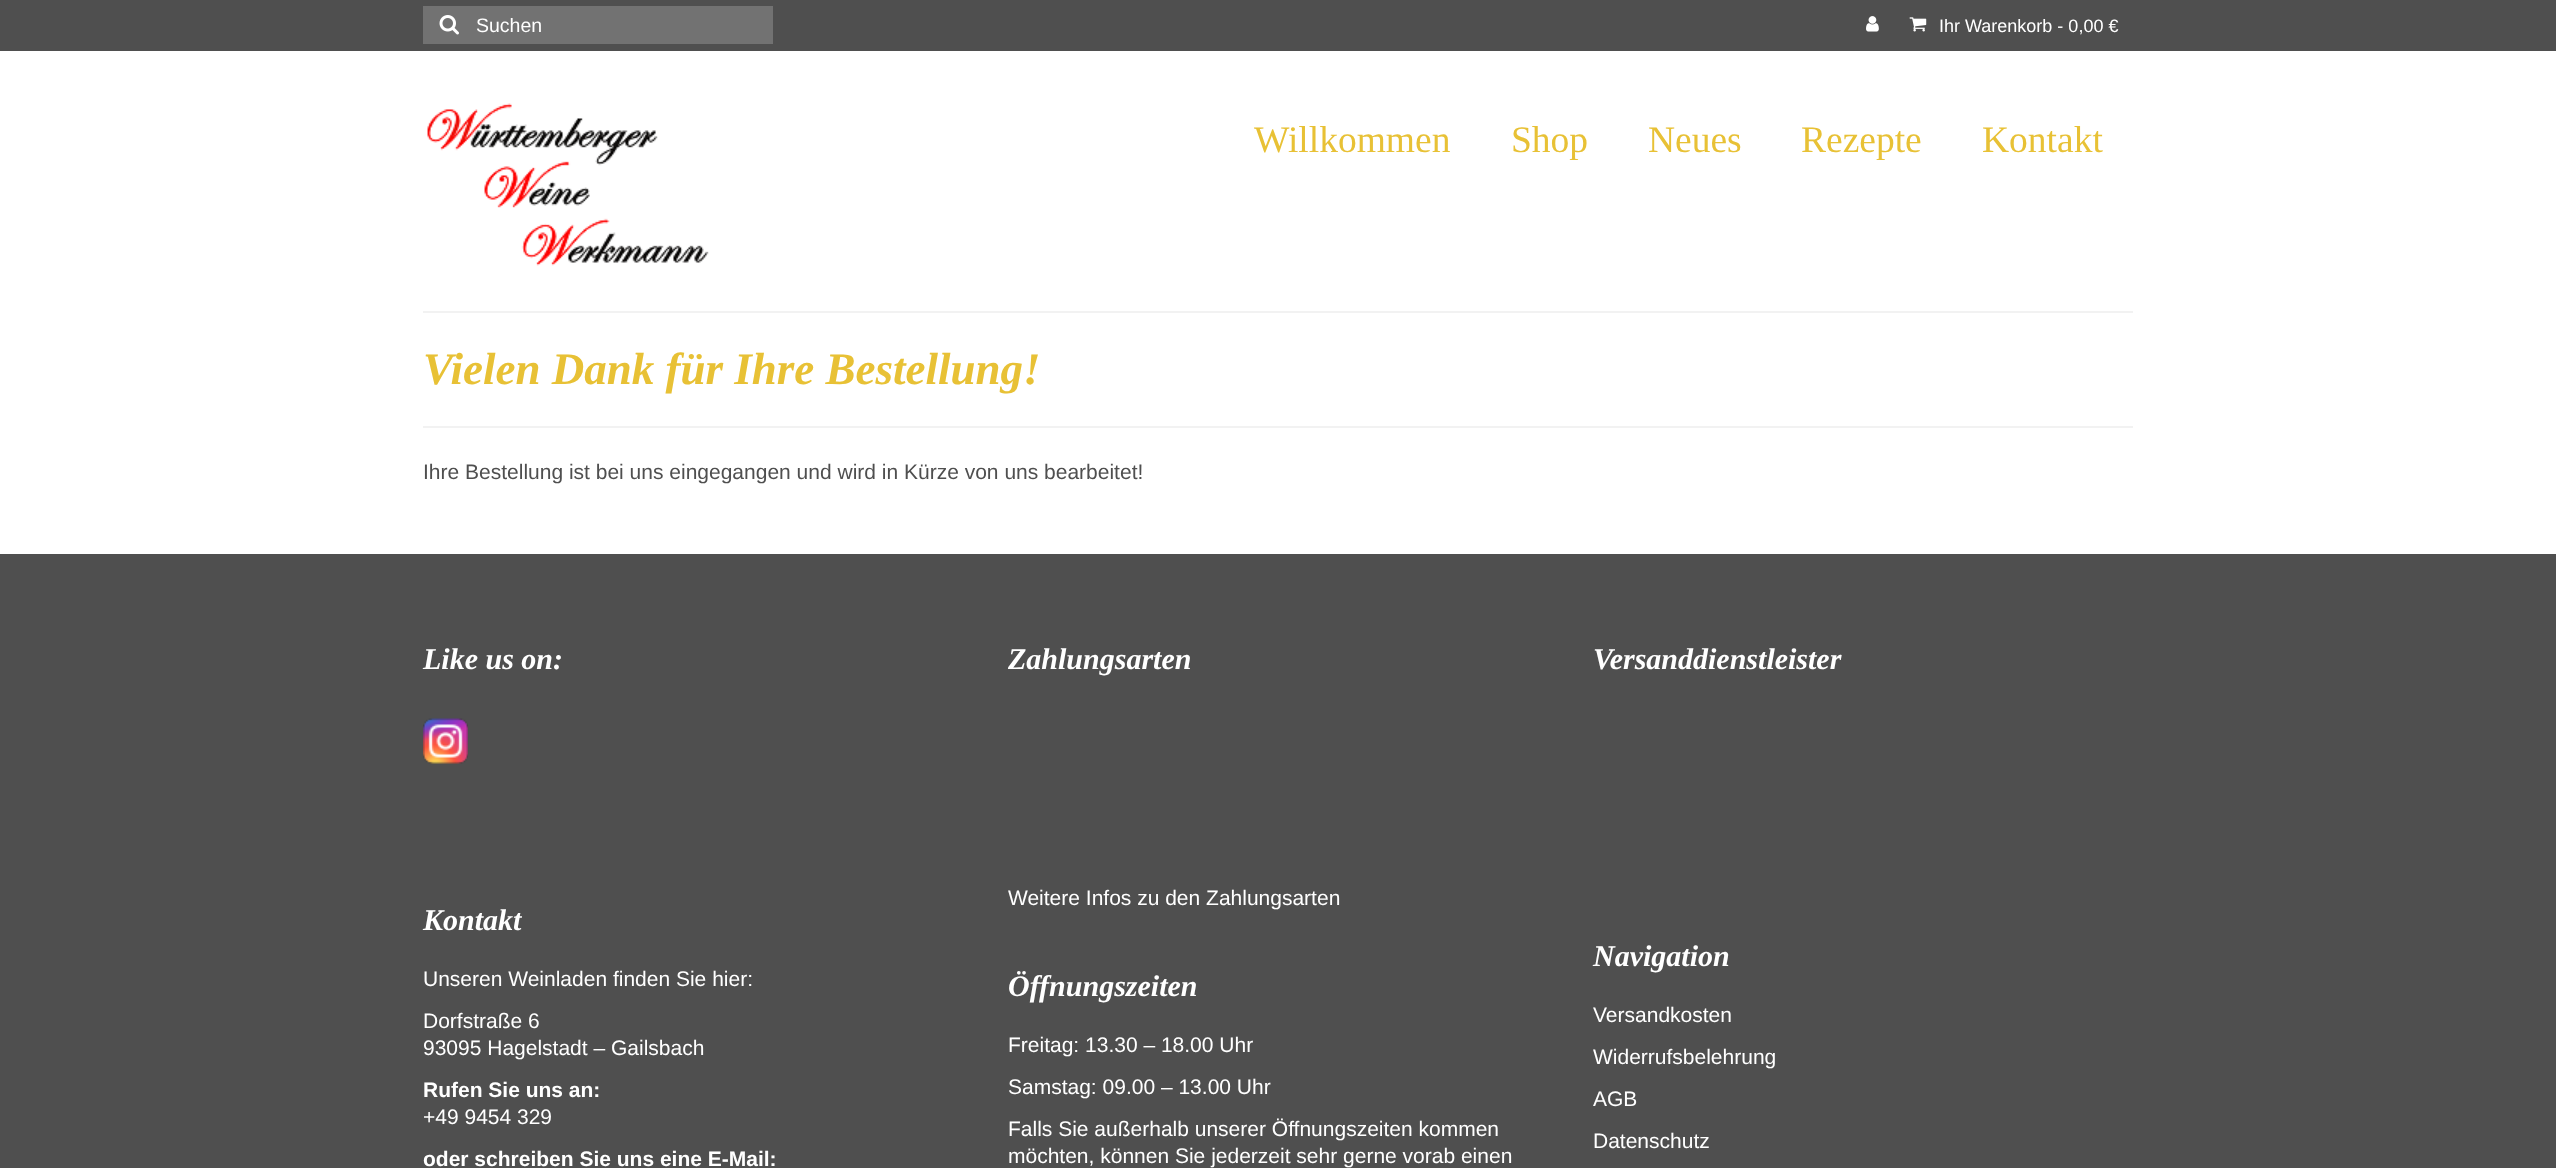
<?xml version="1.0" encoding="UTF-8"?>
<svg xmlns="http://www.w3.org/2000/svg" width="2556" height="1168">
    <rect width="100%" height="100%" fill="#FFFFFF"/>
    <rect x="0" y="0" width="2556" height="51" fill="#4F4F4F"/>
    <rect x="423" y="6" width="350" height="38" fill="#727272"/>
    <image x="439" y="15" width="20" height="20" href="img_01.png"/>
    <text x="476" y="32" font-family="Liberation Sans" font-size="19.5" fill="#FFFFFF">Suchen</text>
    <image x="1866" y="16" width="13" height="16" href="img_02.png"/>
    <image x="1909" y="17" width="18" height="15" href="img_03.png"/>
    <text x="1939" y="32" font-family="Liberation Sans" font-size="18" fill="#FFFFFF">Ihr Warenkorb - 0,00 €</text>
    <image x="427" y="103" width="282" height="163" href="img_04.png"/>
    <text x="1254" y="152" font-family="Liberation Serif" font-size="37.5" fill="#E8C135">Willkommen</text>
    <text x="1511" y="152" font-family="Liberation Serif" font-size="37.5" fill="#E8C135">Shop</text>
    <text x="1648" y="152" font-family="Liberation Serif" font-size="37.5" fill="#E8C135">Neues</text>
    <text x="1801" y="152" font-family="Liberation Serif" font-size="37.5" fill="#E8C135">Rezepte</text>
    <text x="1982" y="152" font-family="Liberation Serif" font-size="37.5" fill="#E8C135">Kontakt</text>
    <rect x="423" y="311" width="1710" height="2" fill="#F2F2F2"/>
    <rect x="423" y="426" width="1710" height="2" fill="#F2F2F2"/>
    <text x="423" y="384" font-family="Liberation Serif" font-size="45" font-weight="700" font-style="italic" fill="#E8C135">Vielen Dank für Ihre Bestellung!</text>
    <text x="423" y="479" font-family="Liberation Sans" font-size="21" fill="#4F4F4F">Ihre Bestellung ist bei uns eingegangen und wird in Kürze von uns bearbeitet!</text>
    <rect x="0" y="554" width="2556" height="614" fill="#4F4F4F"/>
    <text x="423" y="669" font-family="Liberation Serif" font-size="30" font-weight="700" font-style="italic" fill="#FFFFFF">Like us on:</text>
    <image x="423" y="718" width="45" height="46" href="img_05.png"/>
    <text x="423" y="930" font-family="Liberation Serif" font-size="30" font-weight="700" font-style="italic" fill="#FFFFFF">Kontakt</text>
    <text x="423" y="986" font-family="Liberation Sans" font-size="21" fill="#FFFFFF">Unseren Weinladen finden Sie hier:</text>
    <text font-family="Liberation Sans" font-size="21" fill="#FFFFFF">
        <tspan x="423" y="1028">Dorfstraße 6</tspan>
        <tspan x="423" y="1055">93095 Hagelstadt – Gailsbach</tspan>
    </text>
    <text x="423" y="1097" font-family="Liberation Sans" font-size="21" font-weight="700" fill="#FFFFFF">Rufen Sie uns an:</text>
    <text x="423" y="1124" font-family="Liberation Sans" font-size="21" fill="#FFFFFF">+49 9454 329</text>
    <text x="423" y="1166" font-family="Liberation Sans" font-size="21" font-weight="700" fill="#FFFFFF">oder schreiben Sie uns eine E-Mail:</text>
    <text x="1008" y="669" font-family="Liberation Serif" font-size="30" font-weight="700" font-style="italic" fill="#FFFFFF">Zahlungsarten</text>
    <text x="1008" y="905" font-family="Liberation Sans" font-size="21" fill="#FFFFFF">Weitere Infos zu den Zahlungsarten</text>
    <text x="1008" y="996" font-family="Liberation Serif" font-size="30" font-weight="700" font-style="italic" fill="#FFFFFF">Öffnungszeiten</text>
    <text x="1008" y="1052" font-family="Liberation Sans" font-size="21" fill="#FFFFFF">Freitag: 13.30 – 18.00 Uhr</text>
    <text x="1008" y="1094" font-family="Liberation Sans" font-size="21" fill="#FFFFFF">Samstag: 09.00 – 13.00 Uhr</text>
    <text font-family="Liberation Sans" font-size="21" fill="#FFFFFF">
        <tspan x="1008" y="1136">Falls Sie außerhalb unserer Öffnungszeiten kommen</tspan>
        <tspan x="1008" y="1163">möchten, können Sie jederzeit sehr gerne vorab einen</tspan>
    </text>
    <text x="1593" y="669" font-family="Liberation Serif" font-size="30" font-weight="700" font-style="italic" fill="#FFFFFF">Versanddienstleister</text>
    <text x="1593" y="966" font-family="Liberation Serif" font-size="30" font-weight="700" font-style="italic" fill="#FFFFFF">Navigation</text>
    <text x="1593" y="1022" font-family="Liberation Sans" font-size="21" fill="#FFFFFF">Versandkosten</text>
    <text x="1593" y="1064" font-family="Liberation Sans" font-size="21" fill="#FFFFFF">Widerrufsbelehrung</text>
    <text x="1593" y="1106" font-family="Liberation Sans" font-size="21" fill="#FFFFFF">AGB</text>
    <text x="1593" y="1148" font-family="Liberation Sans" font-size="21" fill="#FFFFFF">Datenschutz</text>
</svg>
